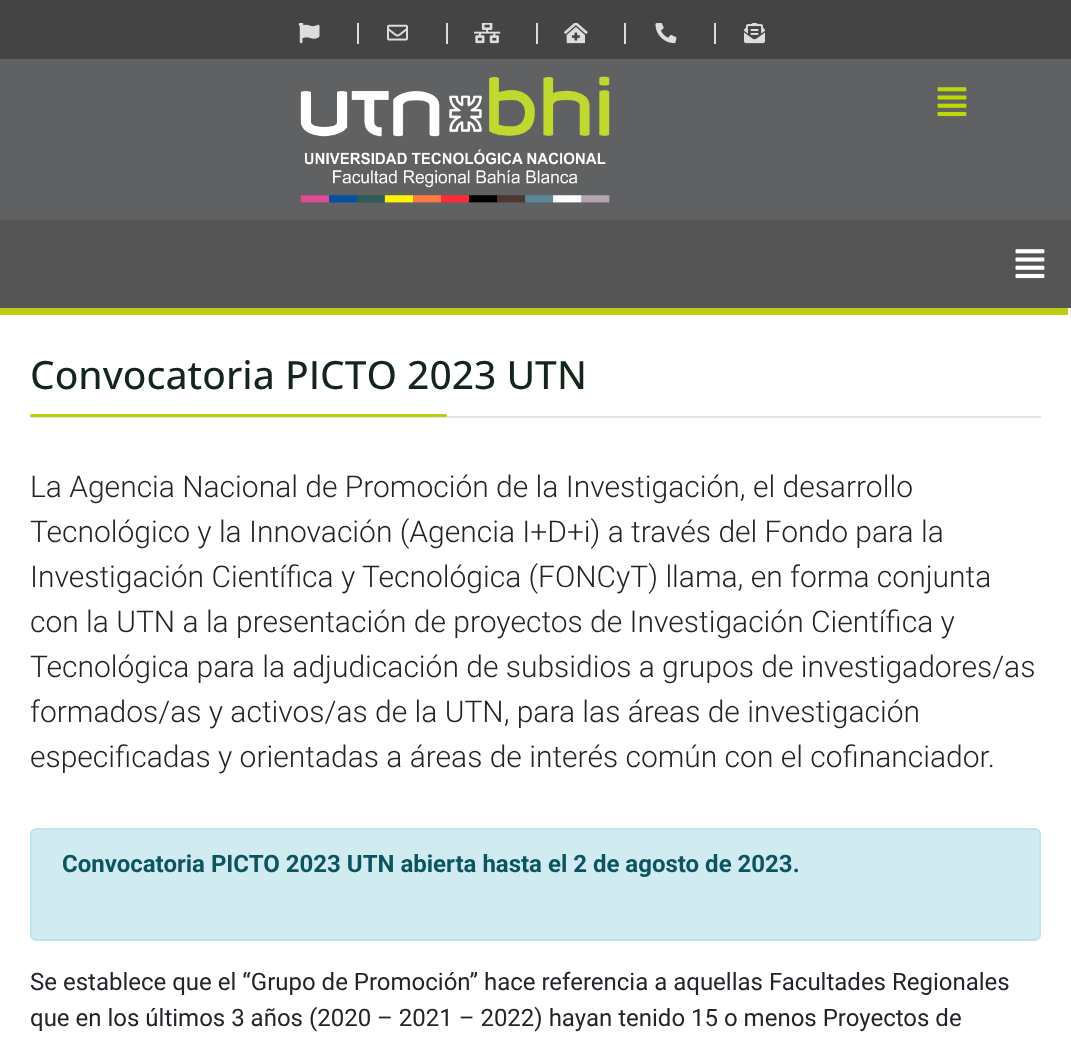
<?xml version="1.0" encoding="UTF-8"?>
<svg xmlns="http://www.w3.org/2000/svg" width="1071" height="1043">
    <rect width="100%" height="100%" fill="#FFFFFF"/>
    <rect x="0" y="0" width="1071" height="59" fill="#444444"/>
    <image x="298" y="23" width="22" height="21" href="img_01.png"/>
    <rect x="357" y="23" width="2" height="21" fill="#DDDDDD"/>
    <image x="387" y="24" width="21" height="17" href="img_02.png"/>
    <rect x="446" y="23" width="2" height="21" fill="#DDDDDD"/>
    <image x="474" y="23" width="27" height="21" href="img_03.png"/>
    <rect x="536" y="23" width="2" height="21" fill="#DDDDDD"/>
    <image x="564" y="23" width="24" height="21" href="img_04.png"/>
    <rect x="624" y="23" width="2" height="21" fill="#DDDDDD"/>
    <image x="655" y="23" width="22" height="21" href="img_05.png"/>
    <rect x="714" y="23" width="2" height="21" fill="#DDDDDD"/>
    <image x="744" y="23" width="21" height="21" href="img_06.png"/>
    <rect x="0" y="59" width="1071" height="161" fill="#5F6163"/>
    <image x="300" y="76" width="310" height="127" href="img_07.png"/>
    <image x="937" y="87" width="30" height="30" href="img_08.png"/>
    <rect x="0" y="220" width="1071" height="88" fill="#555555"/>
    <rect x="0" y="308" width="1068" height="7" fill="#BCCE0F"/>
    <image x="1015" y="249" width="30" height="30" href="img_09.png"/>
    <text x="30" y="389" font-family="Open Sans" font-size="39" font-weight="500" fill="#14261C">Convocatoria PICTO 2023 UTN</text>
    <rect x="30" y="416" width="1011" height="2" fill="#E6E6E6"/>
    <rect x="30" y="414" width="417" height="3" rx="1.5" fill="#BCCE0F"/>
    <text font-family="Roboto" font-size="30" font-weight="300" fill="#212529">
        <tspan x="30" y="497">La Agencia Nacional de Promoción de la Investigación, el desarrollo</tspan>
        <tspan x="30" y="542">Tecnológico y la Innovación (Agencia I+D+i) a través del Fondo para la</tspan>
        <tspan x="30" y="587">Investigación Científica y Tecnológica (FONCyT) llama, en forma conjunta</tspan>
        <tspan x="30" y="632">con la UTN a la presentación de proyectos de Investigación Científica y</tspan>
        <tspan x="30" y="677">Tecnológica para la adjudicación de subsidios a grupos de investigadores/as</tspan>
        <tspan x="30" y="722">formados/as y activos/as de la UTN, para las áreas de investigación</tspan>
        <tspan x="30" y="767">especificadas y orientadas a áreas de interés común con el cofinanciador.</tspan>
    </text>
    <rect x="31" y="829" width="1009" height="111" rx="5" fill="#D1ECF1" stroke="#BEE5EB" stroke-width="2"/>
    <text x="62" y="872" font-family="Roboto" font-size="24" font-weight="700" fill="#0C5460">Convocatoria PICTO 2023 UTN abierta hasta el 2 de agosto de 2023.</text>
    <text font-family="Roboto" font-size="24" fill="#212529">
        <tspan x="30" y="990">Se establece que el “Grupo de Promoción” hace referencia a aquellas Facultades Regionales</tspan>
        <tspan x="30" y="1026">que en los últimos 3 años (2020 – 2021 – 2022) hayan tenido 15 o menos Proyectos de</tspan>
    </text>
</svg>
